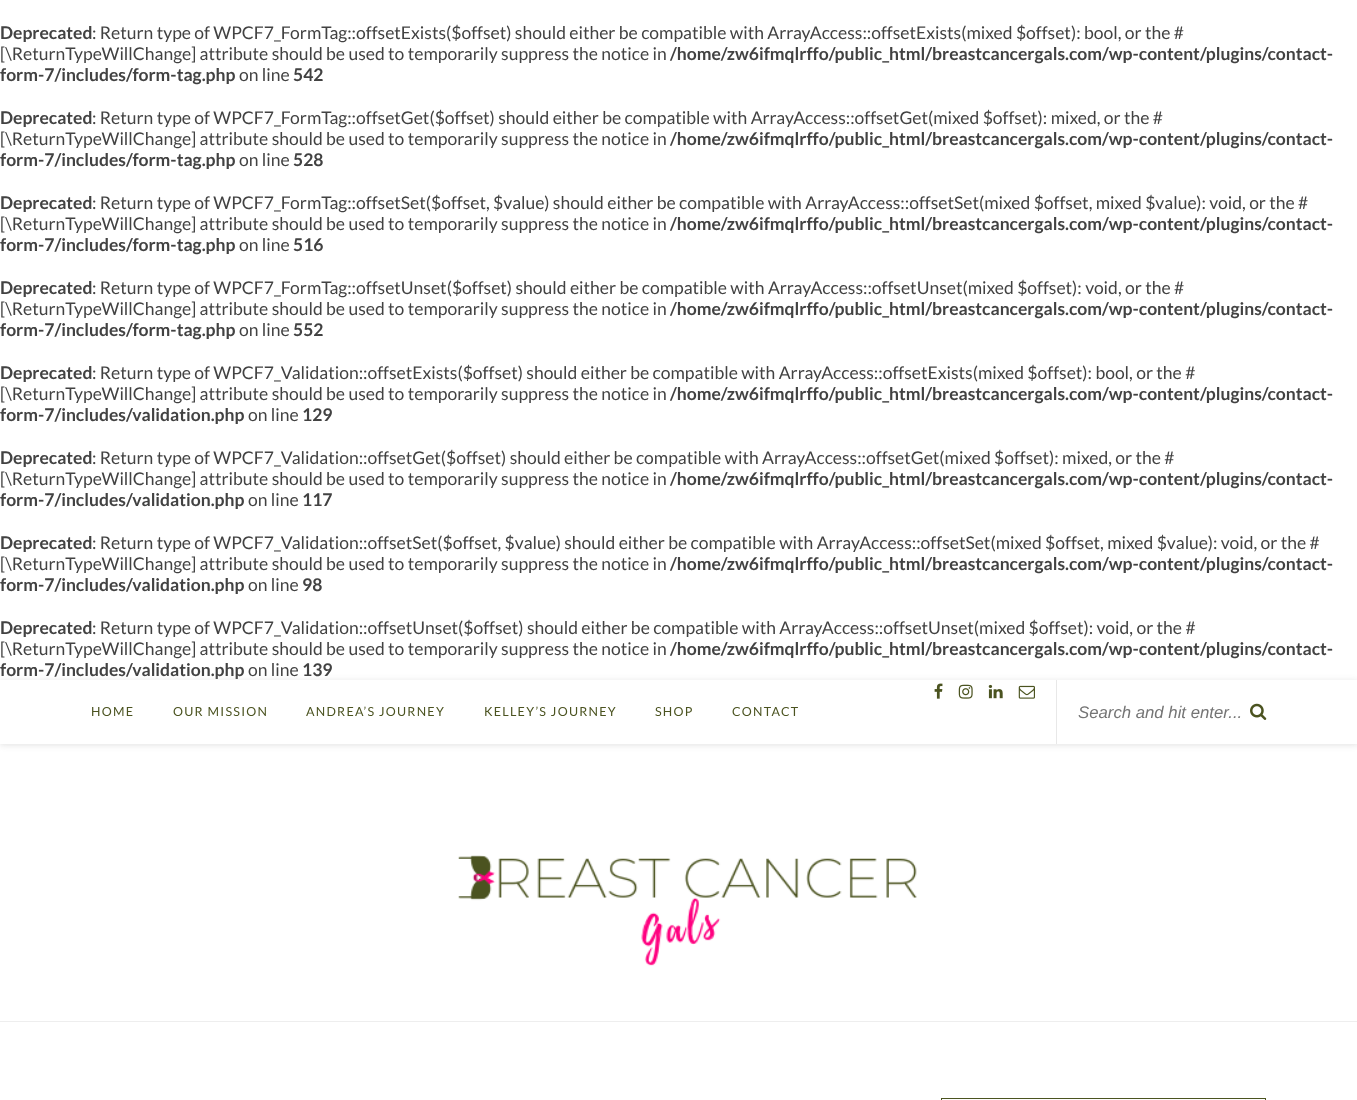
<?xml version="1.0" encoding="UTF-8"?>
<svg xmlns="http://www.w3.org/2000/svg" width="1357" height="1100">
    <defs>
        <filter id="blur1" x="-50%" y="-200%" width="200%" height="500%"><feGaussianBlur stdDeviation="3"/></filter>
    </defs>
    <rect width="100%" height="100%" fill="#FFFFFF"/>
    <text x="0" y="39" font-family="Lato" font-size="17.5" font-weight="700" fill="#424242">Deprecated</text>
    <text x="92" y="39" font-family="Lato" font-size="17.5" fill="#424242">: Return type of WPCF7_FormTag::offsetExists($offset) should either be compatible with ArrayAccess::offsetExists(mixed $offset): bool, or the #</text>
    <text x="0" y="60" font-family="Lato" font-size="17.5" fill="#424242">[\ReturnTypeWillChange] attribute should be used to temporarily suppress the notice in</text>
    <text x="670" y="60" font-family="Lato" font-size="17.5" font-weight="700" fill="#424242">/home/zw6ifmqlrffo/public_html/breastcancergals.com/wp-content/plugins/contact-</text>
    <text x="0" y="81" font-family="Lato" font-size="17.5" font-weight="700" fill="#424242">form-7/includes/form-tag.php</text>
    <text x="239" y="81" font-family="Lato" font-size="17.5" fill="#424242">on line</text>
    <text x="293" y="81" font-family="Lato" font-size="17.5" font-weight="700" fill="#424242">542</text>
    <text x="0" y="124" font-family="Lato" font-size="17.5" font-weight="700" fill="#424242">Deprecated</text>
    <text x="92" y="124" font-family="Lato" font-size="17.5" fill="#424242">: Return type of WPCF7_FormTag::offsetGet($offset) should either be compatible with ArrayAccess::offsetGet(mixed $offset): mixed, or the #</text>
    <text x="0" y="145" font-family="Lato" font-size="17.5" fill="#424242">[\ReturnTypeWillChange] attribute should be used to temporarily suppress the notice in</text>
    <text x="670" y="145" font-family="Lato" font-size="17.5" font-weight="700" fill="#424242">/home/zw6ifmqlrffo/public_html/breastcancergals.com/wp-content/plugins/contact-</text>
    <text x="0" y="166" font-family="Lato" font-size="17.5" font-weight="700" fill="#424242">form-7/includes/form-tag.php</text>
    <text x="239" y="166" font-family="Lato" font-size="17.5" fill="#424242">on line</text>
    <text x="293" y="166" font-family="Lato" font-size="17.5" font-weight="700" fill="#424242">528</text>
    <text x="0" y="209" font-family="Lato" font-size="17.5" font-weight="700" fill="#424242">Deprecated</text>
    <text x="92" y="209" font-family="Lato" font-size="17.5" fill="#424242">: Return type of WPCF7_FormTag::offsetSet($offset, $value) should either be compatible with ArrayAccess::offsetSet(mixed $offset, mixed $value): void, or the #</text>
    <text x="0" y="230" font-family="Lato" font-size="17.5" fill="#424242">[\ReturnTypeWillChange] attribute should be used to temporarily suppress the notice in</text>
    <text x="670" y="230" font-family="Lato" font-size="17.5" font-weight="700" fill="#424242">/home/zw6ifmqlrffo/public_html/breastcancergals.com/wp-content/plugins/contact-</text>
    <text x="0" y="251" font-family="Lato" font-size="17.5" font-weight="700" fill="#424242">form-7/includes/form-tag.php</text>
    <text x="239" y="251" font-family="Lato" font-size="17.5" fill="#424242">on line</text>
    <text x="293" y="251" font-family="Lato" font-size="17.5" font-weight="700" fill="#424242">516</text>
    <text x="0" y="294" font-family="Lato" font-size="17.5" font-weight="700" fill="#424242">Deprecated</text>
    <text x="92" y="294" font-family="Lato" font-size="17.5" fill="#424242">: Return type of WPCF7_FormTag::offsetUnset($offset) should either be compatible with ArrayAccess::offsetUnset(mixed $offset): void, or the #</text>
    <text x="0" y="315" font-family="Lato" font-size="17.5" fill="#424242">[\ReturnTypeWillChange] attribute should be used to temporarily suppress the notice in</text>
    <text x="670" y="315" font-family="Lato" font-size="17.5" font-weight="700" fill="#424242">/home/zw6ifmqlrffo/public_html/breastcancergals.com/wp-content/plugins/contact-</text>
    <text x="0" y="336" font-family="Lato" font-size="17.5" font-weight="700" fill="#424242">form-7/includes/form-tag.php</text>
    <text x="239" y="336" font-family="Lato" font-size="17.5" fill="#424242">on line</text>
    <text x="293" y="336" font-family="Lato" font-size="17.5" font-weight="700" fill="#424242">552</text>
    <text x="0" y="379" font-family="Lato" font-size="17.5" font-weight="700" fill="#424242">Deprecated</text>
    <text x="92" y="379" font-family="Lato" font-size="17.5" fill="#424242">: Return type of WPCF7_Validation::offsetExists($offset) should either be compatible with ArrayAccess::offsetExists(mixed $offset): bool, or the #</text>
    <text x="0" y="400" font-family="Lato" font-size="17.5" fill="#424242">[\ReturnTypeWillChange] attribute should be used to temporarily suppress the notice in</text>
    <text x="670" y="400" font-family="Lato" font-size="17.5" font-weight="700" fill="#424242">/home/zw6ifmqlrffo/public_html/breastcancergals.com/wp-content/plugins/contact-</text>
    <text x="0" y="421" font-family="Lato" font-size="17.5" font-weight="700" fill="#424242">form-7/includes/validation.php</text>
    <text x="248" y="421" font-family="Lato" font-size="17.5" fill="#424242">on line</text>
    <text x="302" y="421" font-family="Lato" font-size="17.5" font-weight="700" fill="#424242">129</text>
    <text x="0" y="464" font-family="Lato" font-size="17.5" font-weight="700" fill="#424242">Deprecated</text>
    <text x="92" y="464" font-family="Lato" font-size="17.5" fill="#424242">: Return type of WPCF7_Validation::offsetGet($offset) should either be compatible with ArrayAccess::offsetGet(mixed $offset): mixed, or the #</text>
    <text x="0" y="485" font-family="Lato" font-size="17.5" fill="#424242">[\ReturnTypeWillChange] attribute should be used to temporarily suppress the notice in</text>
    <text x="670" y="485" font-family="Lato" font-size="17.5" font-weight="700" fill="#424242">/home/zw6ifmqlrffo/public_html/breastcancergals.com/wp-content/plugins/contact-</text>
    <text x="0" y="506" font-family="Lato" font-size="17.5" font-weight="700" fill="#424242">form-7/includes/validation.php</text>
    <text x="248" y="506" font-family="Lato" font-size="17.5" fill="#424242">on line</text>
    <text x="302" y="506" font-family="Lato" font-size="17.5" font-weight="700" fill="#424242">117</text>
    <text x="0" y="549" font-family="Lato" font-size="17.5" font-weight="700" fill="#424242">Deprecated</text>
    <text x="92" y="549" font-family="Lato" font-size="17.5" fill="#424242">: Return type of WPCF7_Validation::offsetSet($offset, $value) should either be compatible with ArrayAccess::offsetSet(mixed $offset, mixed $value): void, or the #</text>
    <text x="0" y="570" font-family="Lato" font-size="17.5" fill="#424242">[\ReturnTypeWillChange] attribute should be used to temporarily suppress the notice in</text>
    <text x="670" y="570" font-family="Lato" font-size="17.5" font-weight="700" fill="#424242">/home/zw6ifmqlrffo/public_html/breastcancergals.com/wp-content/plugins/contact-</text>
    <text x="0" y="591" font-family="Lato" font-size="17.5" font-weight="700" fill="#424242">form-7/includes/validation.php</text>
    <text x="248" y="591" font-family="Lato" font-size="17.5" fill="#424242">on line</text>
    <text x="302" y="591" font-family="Lato" font-size="17.5" font-weight="700" fill="#424242">98</text>
    <text x="0" y="634" font-family="Lato" font-size="17.5" font-weight="700" fill="#424242">Deprecated</text>
    <text x="92" y="634" font-family="Lato" font-size="17.5" fill="#424242">: Return type of WPCF7_Validation::offsetUnset($offset) should either be compatible with ArrayAccess::offsetUnset(mixed $offset): void, or the #</text>
    <text x="0" y="655" font-family="Lato" font-size="17.5" fill="#424242">[\ReturnTypeWillChange] attribute should be used to temporarily suppress the notice in</text>
    <text x="670" y="655" font-family="Lato" font-size="17.5" font-weight="700" fill="#424242">/home/zw6ifmqlrffo/public_html/breastcancergals.com/wp-content/plugins/contact-</text>
    <text x="0" y="676" font-family="Lato" font-size="17.5" font-weight="700" fill="#424242">form-7/includes/validation.php</text>
    <text x="248" y="676" font-family="Lato" font-size="17.5" fill="#424242">on line</text>
    <text x="302" y="676" font-family="Lato" font-size="17.5" font-weight="700" fill="#424242">139</text>
    <rect x="0" y="681" width="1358" height="64" fill="#BEBEBE" fill-opacity="0.46" filter="url(#blur1)"/>
    <rect x="0" y="680" width="1357" height="64" fill="#FFFFFF"/>
    <image x="934" y="683" width="9" height="16" href="img_01.png"/>
    <image x="958" y="684" width="15" height="15" href="img_02.png"/>
    <image x="988" y="684" width="15" height="15" href="img_03.png"/>
    <image x="1018" y="685" width="17" height="14" href="img_04.png"/>
    <text x="91" y="716" font-family="Lato" font-size="12.5" letter-spacing="1.25" fill="#4B5320">HOME</text>
    <text x="173" y="716" font-family="Lato" font-size="12.5" letter-spacing="1.25" fill="#4B5320">OUR MISSION</text>
    <text x="306" y="716" font-family="Lato" font-size="12.5" letter-spacing="1.25" fill="#4B5320">ANDREA’S JOURNEY</text>
    <text x="484" y="716" font-family="Lato" font-size="12.5" letter-spacing="1.25" fill="#4B5320">KELLEY’S JOURNEY</text>
    <text x="655" y="716" font-family="Lato" font-size="12.5" letter-spacing="1.25" fill="#4B5320">SHOP</text>
    <text x="732" y="716" font-family="Lato" font-size="12.5" letter-spacing="1.25" fill="#4B5320">CONTACT</text>
    <rect x="1056" y="680" width="1" height="64" fill="#E8E8E8"/>
    <text x="1078" y="718" font-family="Liberation Sans" font-size="16.75" font-style="italic" fill="#757575">Search and hit enter...</text>
    <image x="1250" y="703" width="17" height="17" href="img_05.png"/>
    <rect x="0" y="1021" width="1357" height="1" fill="#EEEEEE"/>
    <image x="458" y="855" width="459" height="111" href="img_06.png"/>
    <rect x="941.5" y="1098.5" width="324" height="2" fill="none" stroke="#4B5320"/>
</svg>
